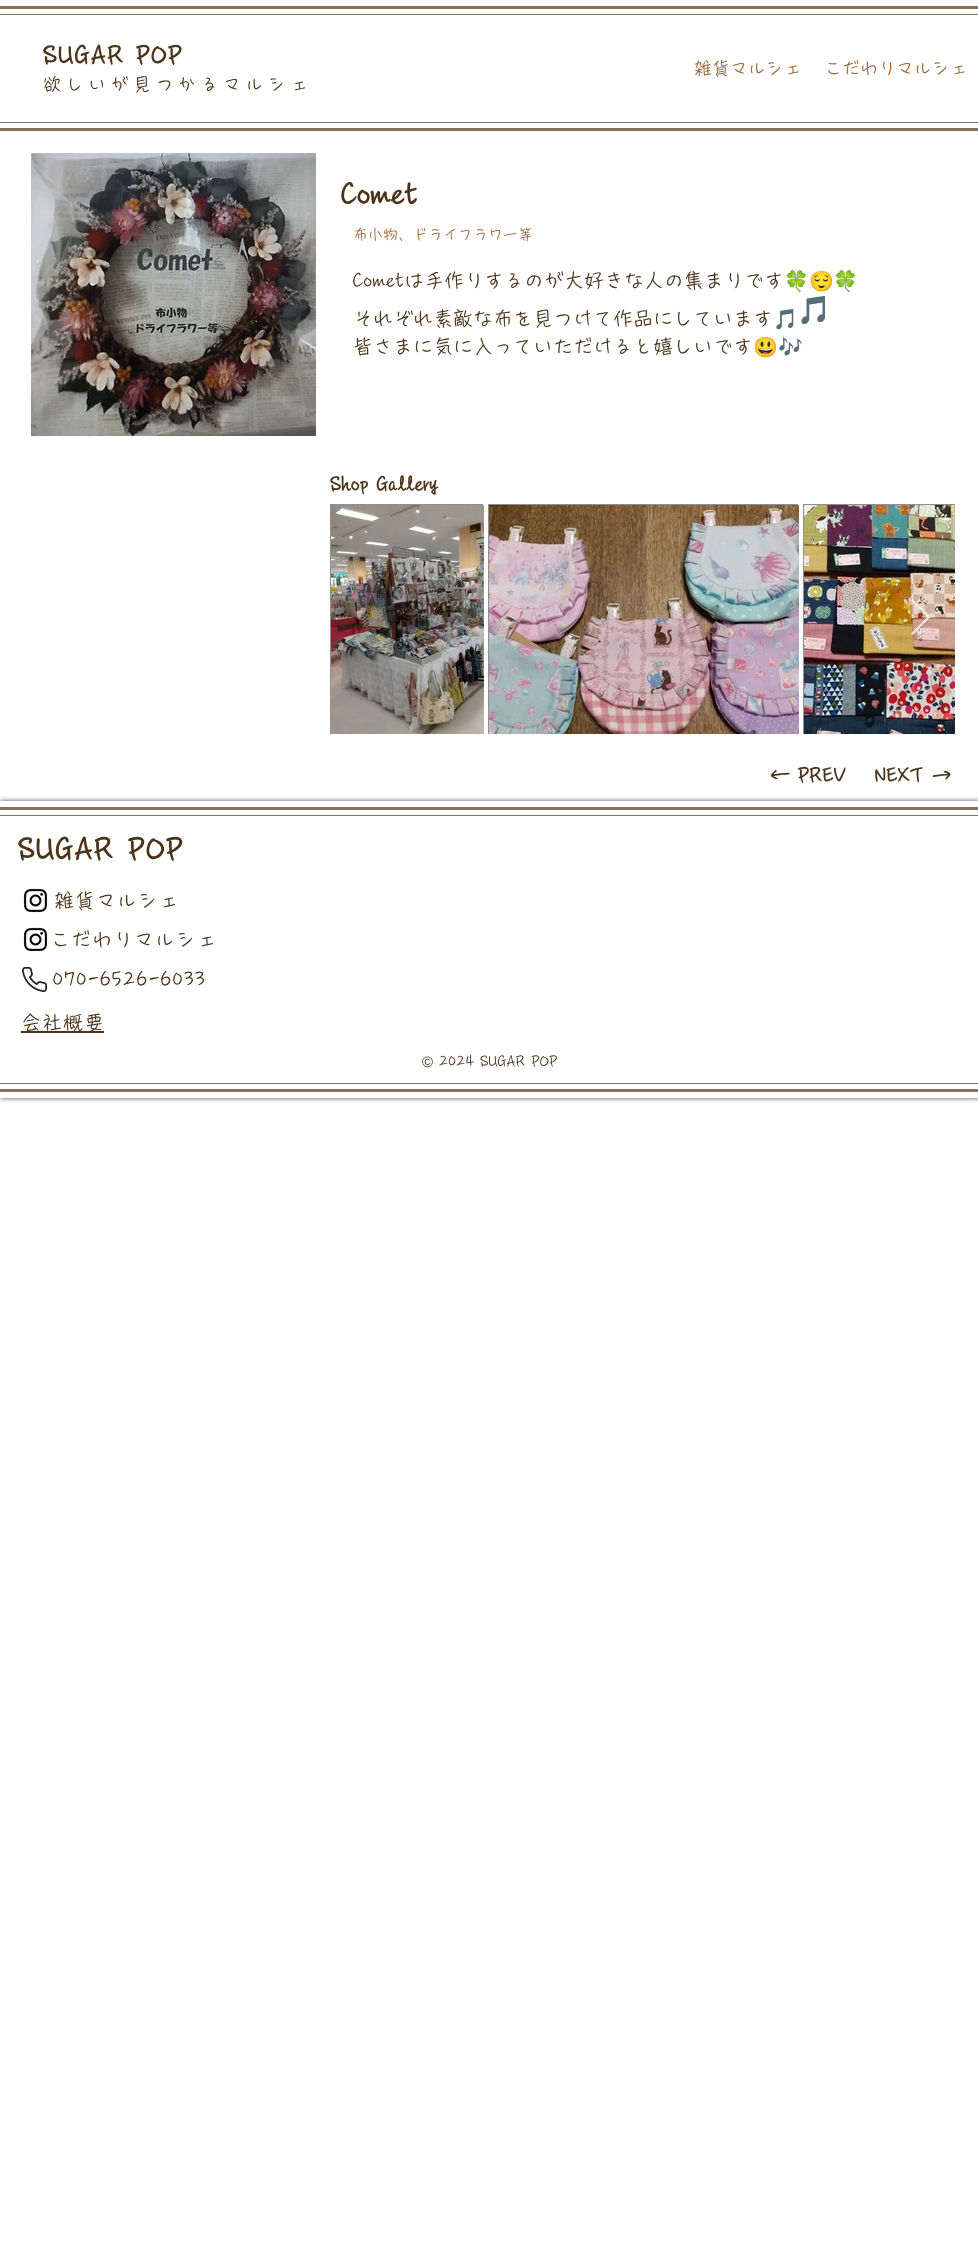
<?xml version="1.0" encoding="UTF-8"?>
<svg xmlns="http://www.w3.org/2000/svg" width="978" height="2255">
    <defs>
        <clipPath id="clip1"><path d="M 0 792 H 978 V 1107 H 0 Z M 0 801 H 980 V 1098 H 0 Z" clip-rule="evenodd"/></clipPath>
        <filter id="blur1" x="-50%" y="-200%" width="200%" height="500%"><feGaussianBlur stdDeviation="2.5"/></filter>
    </defs>
    <rect width="100%" height="100%" fill="#FFFFFF"/>
    <rect x="0" y="6" width="978" height="3" fill="#82715F"/>
    <rect x="0" y="128" width="978" height="3" fill="#82715F"/>
    <rect x="0" y="14" width="978" height="1" fill="#82715F"/>
    <rect x="0" y="122" width="978" height="1" fill="#82715F"/>
    <text x="43" y="65" font-family="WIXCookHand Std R" font-size="25" font-weight="700" letter-spacing="1.25" fill="#4C341B">SUGAR POP</text>
    <text x="43" y="91" font-family="WIXCookHand Std R" font-size="18" letter-spacing="4.5" fill="#4C341B">欲しいが見つかるマルシェ</text>
    <text x="694" y="75" font-family="WIXCookHand Std R" font-size="18" fill="#976735">雑貨マルシェ</text>
    <text x="824" y="75" font-family="WIXCookHand Std R" font-size="18" fill="#976735">こだわりマルシェ</text>
    <image x="31" y="153" width="285" height="283" href="img_01.png"/>
    <text x="341" y="206" font-family="WIXCookHand Std R" font-size="30" font-weight="700" fill="#4C341B">Comet</text>
    <text x="353" y="240" font-family="WIXCookHand Std R" font-size="15" fill="#976735">布小物、ドライフラワー等</text>
    <text x="353" y="288" font-family="WIXCookHand Std R" font-size="20" fill="#4C341B">Cometは手作りするのが大好きな人の集まりです</text>
    <text x="784" y="288" font-family="Noto Color Emoji" font-size="20" fill="#4C341B">🍀😌🍀</text>
    <text x="353" y="326" font-family="WIXCookHand Std R" font-size="20" fill="#4C341B">それぞれ素敵な布を見つけて作品にしています</text>
    <text x="773" y="326" font-family="Noto Color Emoji" font-size="20" fill="#4C341B">🎵</text>
    <image x="801" y="296" width="24" height="28" href="img_02.png"/>
    <text x="353" y="354" font-family="WIXCookHand Std R" font-size="20" fill="#4C341B">皆さまに気に入っていただけると嬉しいです</text>
    <text x="753" y="354" font-family="Noto Color Emoji" font-size="20" fill="#4C341B">😃🎶</text>
    <text x="330" y="492" font-family="WIXCookHand Std R" font-size="20" font-weight="700" fill="#4C341B">Shop Gallery</text>
    <rect x="330" y="504" width="153" height="230" fill="#8F8F8F"/>
    <image x="331" y="505" width="153" height="229" href="img_03.png"/>
    <rect x="488" y="504" width="310" height="230" fill="#8F8F8F"/>
    <image x="489" y="505" width="310" height="229" href="img_04.png"/>
    <rect x="803" y="504" width="152" height="230" fill="#8F8F8F"/>
    <image x="804" y="505" width="151" height="229" href="img_05.png"/>
    <path d="M 911 600.5 L 912.5 599 L 930.5 617 L 912.5 635 L 911 633.5 L 927.5 617 Z" fill="#EFEFEF" fill-opacity="0.9"/>
    <text x="770" y="783" font-family="WIXCookHand Std R" font-size="20" font-weight="700" fill="#4C341B">← PREV</text>
    <text x="875" y="783" font-family="WIXCookHand Std R" font-size="20" font-weight="700" fill="#4C341B">NEXT →</text>
    <g clip-path="url(#clip1)">
        <rect x="0" y="801" width="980" height="297" fill="#000000" fill-opacity="0.7" filter="url(#blur1)"/>
    </g>
    <rect x="0" y="807" width="978" height="3" fill="#82715F"/>
    <rect x="0" y="1089" width="978" height="3" fill="#82715F"/>
    <rect x="0" y="815" width="978" height="1" fill="#82715F"/>
    <rect x="0" y="1083" width="978" height="1" fill="#82715F"/>
    <text x="18" y="861" font-family="WIXCookHand Std R" font-size="30" font-weight="700" letter-spacing="1.25" fill="#4C341B">SUGAR POP</text>
    <image x="23" y="888" width="25" height="25" href="img_06.png"/>
    <text x="54" y="908" font-family="WIXCookHand Std R" font-size="20" letter-spacing="1" fill="#4C341B">雑貨マルシェ</text>
    <image x="23" y="927" width="25" height="25" href="img_06.png"/>
    <text x="50" y="947" font-family="WIXCookHand Std R" font-size="20" letter-spacing="1" fill="#4C341B">こだわりマルシェ</text>
    <image x="22" y="967" width="25" height="25" href="img_07.png"/>
    <text x="53" y="987" font-family="WIXCookHand Std R" font-size="20" letter-spacing="1" fill="#4C341B">070-6526-6033</text>
    <rect x="21" y="1031" width="83" height="2" fill="#4C341B"/>
    <text x="21" y="1030" font-family="WIXCookHand Std R" font-size="20" letter-spacing="1" fill="#4C341B">会社概要</text>
    <text x="422" y="1067" font-family="Liberation Sans" font-size="15" fill="#4C341B">©</text>
    <text x="439" y="1067" font-family="WIXCookHand Std R" font-size="15" fill="#4C341B">2024 SUGAR POP</text>
</svg>
